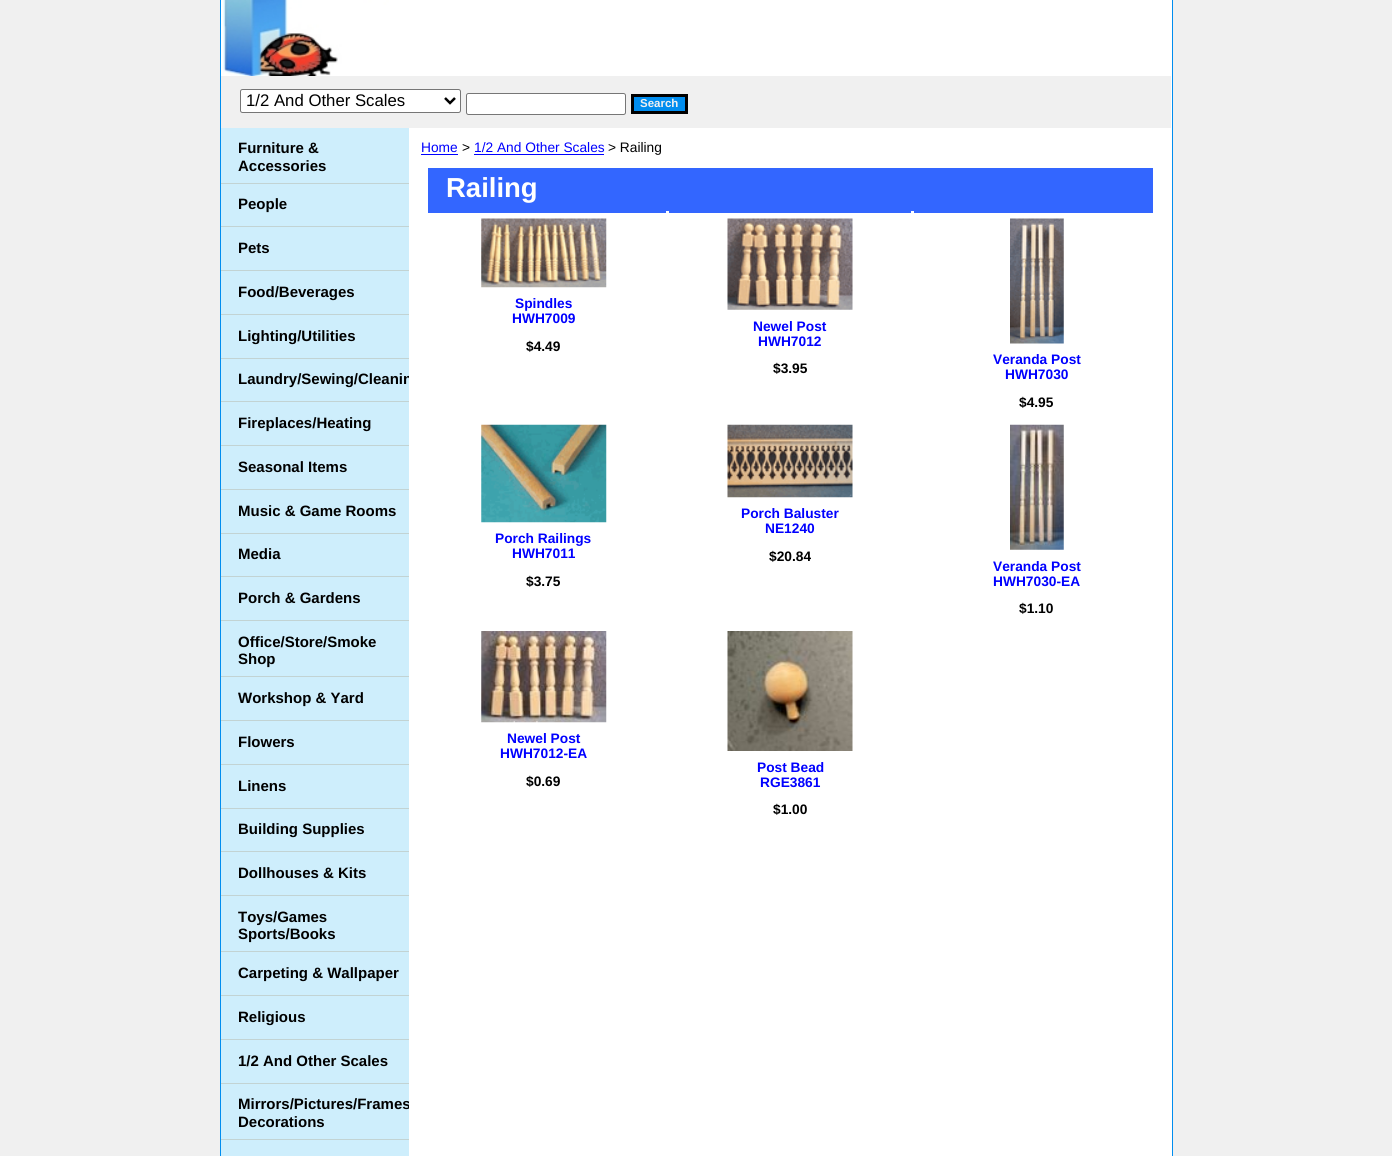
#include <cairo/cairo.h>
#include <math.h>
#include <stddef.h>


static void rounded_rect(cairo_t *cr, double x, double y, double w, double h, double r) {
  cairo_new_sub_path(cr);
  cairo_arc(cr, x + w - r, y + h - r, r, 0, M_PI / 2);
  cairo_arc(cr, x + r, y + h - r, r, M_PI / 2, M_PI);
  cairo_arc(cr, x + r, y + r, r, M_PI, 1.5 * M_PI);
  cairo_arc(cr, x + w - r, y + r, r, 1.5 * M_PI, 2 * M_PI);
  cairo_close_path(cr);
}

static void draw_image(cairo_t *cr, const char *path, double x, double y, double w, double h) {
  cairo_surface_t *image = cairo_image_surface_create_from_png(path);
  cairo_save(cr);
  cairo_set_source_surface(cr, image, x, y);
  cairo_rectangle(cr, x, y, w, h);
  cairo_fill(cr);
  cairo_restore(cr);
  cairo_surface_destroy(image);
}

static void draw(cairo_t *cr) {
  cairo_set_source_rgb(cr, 240 / 255.0, 240 / 255.0, 240 / 255.0);
  cairo_paint(cr);
  cairo_set_source_rgb(cr, 1, 1, 1);
  cairo_rectangle(cr, 220.5, -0.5, 952, 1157);
  cairo_fill_preserve(cr);
  cairo_set_source_rgb(cr, 0, 141 / 255.0, 239 / 255.0);
  cairo_set_line_width(cr, 1);
  cairo_stroke(cr);
  draw_image(cr, "images/1.png", 221, 0, 950, 76);
  cairo_set_source_rgb(cr, 240 / 255.0, 240 / 255.0, 240 / 255.0);
  cairo_rectangle(cr, 221, 76, 950, 52);
  cairo_fill(cr);
  cairo_set_source_rgb(cr, 1, 1, 1);
  rounded_rect(cr, 240.5, 89.5, 220, 23, 2);
  cairo_fill_preserve(cr);
  cairo_set_source_rgb(cr, 118 / 255.0, 118 / 255.0, 118 / 255.0);
  cairo_stroke(cr);
  cairo_new_path(cr);
  cairo_move_to(cr, 445, 98);
  cairo_line_to(cr, 450, 103);
  cairo_line_to(cr, 455, 98);
  cairo_set_source_rgb(cr, 0, 0, 0);
  cairo_set_line_width(cr, 2.5);
  cairo_stroke(cr);
  cairo_set_source_rgb(cr, 1, 1, 1);
  rounded_rect(cr, 466.5, 93.5, 159, 21, 2);
  cairo_fill_preserve(cr);
  cairo_set_source_rgb(cr, 118 / 255.0, 118 / 255.0, 118 / 255.0);
  cairo_set_line_width(cr, 1);
  cairo_stroke(cr);
  cairo_set_source_rgb(cr, 0, 141 / 255.0, 239 / 255.0);
  cairo_rectangle(cr, 632.5, 95.5, 54, 17);
  cairo_fill_preserve(cr);
  cairo_set_source_rgb(cr, 0, 0, 0);
  cairo_set_line_width(cr, 3);
  cairo_stroke(cr);
  cairo_set_source_rgb(cr, 206 / 255.0, 238 / 255.0, 252 / 255.0);
  cairo_rectangle(cr, 221, 128, 188, 1028);
  cairo_fill(cr);
  cairo_set_source_rgb(cr, 194 / 255.0, 211 / 255.0, 211 / 255.0);
  cairo_rectangle(cr, 221, 183, 188, 1);
  cairo_fill(cr);
  cairo_rectangle(cr, 221, 226, 188, 1);
  cairo_fill(cr);
  cairo_rectangle(cr, 221, 270, 188, 1);
  cairo_fill(cr);
  cairo_rectangle(cr, 221, 314, 188, 1);
  cairo_fill(cr);
  cairo_rectangle(cr, 221, 358, 188, 1);
  cairo_fill(cr);
  cairo_rectangle(cr, 221, 401, 188, 1);
  cairo_fill(cr);
  cairo_rectangle(cr, 221, 445, 188, 1);
  cairo_fill(cr);
  cairo_rectangle(cr, 221, 489, 188, 1);
  cairo_fill(cr);
  cairo_rectangle(cr, 221, 533, 188, 1);
  cairo_fill(cr);
  cairo_rectangle(cr, 221, 576, 188, 1);
  cairo_fill(cr);
  cairo_rectangle(cr, 221, 620, 188, 1);
  cairo_fill(cr);
  cairo_rectangle(cr, 221, 676, 188, 1);
  cairo_fill(cr);
  cairo_rectangle(cr, 221, 720, 188, 1);
  cairo_fill(cr);
  cairo_rectangle(cr, 221, 764, 188, 1);
  cairo_fill(cr);
  cairo_rectangle(cr, 221, 808, 188, 1);
  cairo_fill(cr);
  cairo_rectangle(cr, 221, 851, 188, 1);
  cairo_fill(cr);
  cairo_rectangle(cr, 221, 895, 188, 1);
  cairo_fill(cr);
  cairo_rectangle(cr, 221, 951, 188, 1);
  cairo_fill(cr);
  cairo_rectangle(cr, 221, 995, 188, 1);
  cairo_fill(cr);
  cairo_rectangle(cr, 221, 1039, 188, 1);
  cairo_fill(cr);
  cairo_rectangle(cr, 221, 1083, 188, 1);
  cairo_fill(cr);
  cairo_rectangle(cr, 221, 1139, 188, 1);
  cairo_fill(cr);
  cairo_set_source_rgb(cr, 0, 0, 1);
  cairo_rectangle(cr, 421, 154, 37, 1);
  cairo_fill(cr);
  cairo_rectangle(cr, 474, 154, 130, 1);
  cairo_fill(cr);
  cairo_set_source_rgb(cr, 51 / 255.0, 102 / 255.0, 1);
  cairo_rectangle(cr, 428, 168, 725, 45);
  cairo_fill(cr);
  cairo_set_source_rgb(cr, 1, 1, 1);
  cairo_rectangle(cr, 666, 211, 3, 2);
  cairo_fill(cr);
  draw_image(cr, "images/2.png", 481, 218, 126, 70);
  cairo_rectangle(cr, 911, 211, 3, 2);
  cairo_fill(cr);
  draw_image(cr, "images/3.png", 727, 218, 126, 92);
  draw_image(cr, "images/4.png", 1010, 218, 54, 126);
  draw_image(cr, "images/5.png", 481, 424, 126, 99);
  draw_image(cr, "images/6.png", 727, 424, 126, 74);
  draw_image(cr, "images/7.png", 1010, 424, 54, 126);
  draw_image(cr, "images/8.png", 481, 631, 126, 92);
  draw_image(cr, "images/9.png", 727, 631, 126, 120);
  cairo_select_font_face(cr, "Liberation Sans", CAIRO_FONT_SLANT_NORMAL, CAIRO_FONT_WEIGHT_NORMAL);
  cairo_set_font_size(cr, 16.75);
  cairo_set_source_rgb(cr, 0, 0, 0);
  cairo_move_to(cr, 246, 106);
  cairo_show_text(cr, "1/2 And Other Scales");
  cairo_select_font_face(cr, "Liberation Sans", CAIRO_FONT_SLANT_NORMAL, CAIRO_FONT_WEIGHT_BOLD);
  cairo_set_font_size(cr, 11.5);
  cairo_set_source_rgb(cr, 240 / 255.0, 240 / 255.0, 240 / 255.0);
  cairo_move_to(cr, 640, 107);
  cairo_show_text(cr, "Search");
  cairo_set_font_size(cr, 15);
  cairo_set_source_rgb(cr, 0, 0, 0);
  cairo_move_to(cr, 238, 153);
  cairo_show_text(cr, "Furniture &");
  cairo_move_to(cr, 238, 171);
  cairo_show_text(cr, "Accessories");
  cairo_move_to(cr, 238, 209);
  cairo_show_text(cr, "People");
  cairo_move_to(cr, 238, 253);
  cairo_show_text(cr, "Pets");
  cairo_move_to(cr, 238, 297);
  cairo_show_text(cr, "Food/Beverages");
  cairo_move_to(cr, 238, 341);
  cairo_show_text(cr, "Lighting/Utilities");
  cairo_save(cr);
  cairo_rectangle(cr, 221, 128, 188, 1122);
  cairo_clip(cr);
  cairo_move_to(cr, 238, 384);
  cairo_show_text(cr, "Laundry/Sewing/Cleanin");
  cairo_restore(cr);
  cairo_move_to(cr, 238, 428);
  cairo_show_text(cr, "Fireplaces/Heating");
  cairo_move_to(cr, 238, 472);
  cairo_show_text(cr, "Seasonal Items");
  cairo_move_to(cr, 238, 516);
  cairo_show_text(cr, "Music & Game Rooms");
  cairo_move_to(cr, 238, 559);
  cairo_show_text(cr, "Media");
  cairo_move_to(cr, 238, 603);
  cairo_show_text(cr, "Porch & Gardens");
  cairo_move_to(cr, 238, 647);
  cairo_show_text(cr, "Office/Store/Smoke");
  cairo_move_to(cr, 238, 664);
  cairo_show_text(cr, "Shop");
  cairo_move_to(cr, 238, 703);
  cairo_show_text(cr, "Workshop & Yard");
  cairo_move_to(cr, 238, 747);
  cairo_show_text(cr, "Flowers");
  cairo_move_to(cr, 238, 791);
  cairo_show_text(cr, "Linens");
  cairo_move_to(cr, 238, 834);
  cairo_show_text(cr, "Building Supplies");
  cairo_move_to(cr, 238, 878);
  cairo_show_text(cr, "Dollhouses & Kits");
  cairo_move_to(cr, 238, 922);
  cairo_show_text(cr, "Toys/Games");
  cairo_move_to(cr, 238, 939);
  cairo_show_text(cr, "Sports/Books");
  cairo_move_to(cr, 238, 978);
  cairo_show_text(cr, "Carpeting & Wallpaper");
  cairo_move_to(cr, 238, 1022);
  cairo_show_text(cr, "Religious");
  cairo_move_to(cr, 238, 1066);
  cairo_show_text(cr, "1/2 And Other Scales");
  cairo_save(cr);
  cairo_rectangle(cr, 221, 128, 188, 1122);
  cairo_clip(cr);
  cairo_move_to(cr, 238, 1109);
  cairo_show_text(cr, "Mirrors/Pictures/Frames");
  cairo_restore(cr);
  cairo_move_to(cr, 238, 1127);
  cairo_show_text(cr, "Decorations");
  cairo_select_font_face(cr, "Liberation Sans", CAIRO_FONT_SLANT_NORMAL, CAIRO_FONT_WEIGHT_NORMAL);
  cairo_set_font_size(cr, 13.75);
  cairo_set_source_rgb(cr, 0, 0, 1);
  cairo_move_to(cr, 421, 152);
  cairo_show_text(cr, "Home");
  cairo_set_source_rgb(cr, 0, 0, 0);
  cairo_move_to(cr, 462, 152);
  cairo_show_text(cr, ">");
  cairo_set_source_rgb(cr, 0, 0, 1);
  cairo_move_to(cr, 474, 152);
  cairo_show_text(cr, "1/2 And Other Scales");
  cairo_set_source_rgb(cr, 0, 0, 0);
  cairo_move_to(cr, 608, 152);
  cairo_show_text(cr, "> Railing");
  cairo_select_font_face(cr, "Liberation Sans", CAIRO_FONT_SLANT_NORMAL, CAIRO_FONT_WEIGHT_BOLD);
  cairo_set_font_size(cr, 27.5);
  cairo_set_source_rgb(cr, 1, 1, 1);
  cairo_move_to(cr, 446, 197);
  cairo_show_text(cr, "Railing");
  cairo_set_font_size(cr, 13.75);
  cairo_set_source_rgb(cr, 0, 0, 1);
  cairo_move_to(cr, 515, 308);
  cairo_show_text(cr, "Spindles");
  cairo_move_to(cr, 512, 323);
  cairo_show_text(cr, "HWH7009");
  cairo_set_source_rgb(cr, 0, 0, 0);
  cairo_move_to(cr, 526, 351);
  cairo_show_text(cr, "$4.49");
  cairo_set_source_rgb(cr, 0, 0, 1);
  cairo_move_to(cr, 753, 331);
  cairo_show_text(cr, "Newel Post");
  cairo_move_to(cr, 758, 346);
  cairo_show_text(cr, "HWH7012");
  cairo_set_source_rgb(cr, 0, 0, 0);
  cairo_move_to(cr, 773, 373);
  cairo_show_text(cr, "$3.95");
  cairo_set_source_rgb(cr, 0, 0, 1);
  cairo_move_to(cr, 993, 364);
  cairo_show_text(cr, "Veranda Post");
  cairo_move_to(cr, 1005, 379);
  cairo_show_text(cr, "HWH7030");
  cairo_set_source_rgb(cr, 0, 0, 0);
  cairo_move_to(cr, 1019, 407);
  cairo_show_text(cr, "$4.95");
  cairo_set_source_rgb(cr, 0, 0, 1);
  cairo_move_to(cr, 495, 543);
  cairo_show_text(cr, "Porch Railings");
  cairo_move_to(cr, 512, 558);
  cairo_show_text(cr, "HWH7011");
  cairo_set_source_rgb(cr, 0, 0, 0);
  cairo_move_to(cr, 526, 586);
  cairo_show_text(cr, "$3.75");
  cairo_set_source_rgb(cr, 0, 0, 1);
  cairo_move_to(cr, 741, 518);
  cairo_show_text(cr, "Porch Baluster");
  cairo_move_to(cr, 765, 533);
  cairo_show_text(cr, "NE1240");
  cairo_set_source_rgb(cr, 0, 0, 0);
  cairo_move_to(cr, 769, 561);
  cairo_show_text(cr, "$20.84");
  cairo_set_source_rgb(cr, 0, 0, 1);
  cairo_move_to(cr, 993, 571);
  cairo_show_text(cr, "Veranda Post");
  cairo_move_to(cr, 993, 586);
  cairo_show_text(cr, "HWH7030-EA");
  cairo_set_source_rgb(cr, 0, 0, 0);
  cairo_move_to(cr, 1019, 613);
  cairo_show_text(cr, "$1.10");
  cairo_set_source_rgb(cr, 0, 0, 1);
  cairo_move_to(cr, 507, 743);
  cairo_show_text(cr, "Newel Post");
  cairo_move_to(cr, 500, 758);
  cairo_show_text(cr, "HWH7012-EA");
  cairo_set_source_rgb(cr, 0, 0, 0);
  cairo_move_to(cr, 526, 786);
  cairo_show_text(cr, "$0.69");
  cairo_set_source_rgb(cr, 0, 0, 1);
  cairo_move_to(cr, 757, 772);
  cairo_show_text(cr, "Post Bead");
  cairo_move_to(cr, 760, 787);
  cairo_show_text(cr, "RGE3861");
  cairo_set_source_rgb(cr, 0, 0, 0);
  cairo_move_to(cr, 773, 814);
  cairo_show_text(cr, "$1.00");
}

int main(void) {
  cairo_surface_t *surface = cairo_image_surface_create(CAIRO_FORMAT_RGB24, 1392, 1156);
  cairo_t *cr = cairo_create(surface);
  cairo_font_options_t *options = cairo_font_options_create();
  cairo_font_options_set_hint_metrics(options, CAIRO_HINT_METRICS_OFF);
  cairo_font_options_set_hint_style(options, CAIRO_HINT_STYLE_NONE);
  cairo_set_font_options(cr, options);
  cairo_set_miter_limit(cr, 4);
  draw(cr);
  cairo_surface_write_to_png(surface, "out.png");
  cairo_font_options_destroy(options);
  cairo_destroy(cr);
  cairo_surface_destroy(surface);
  return 0;
}
